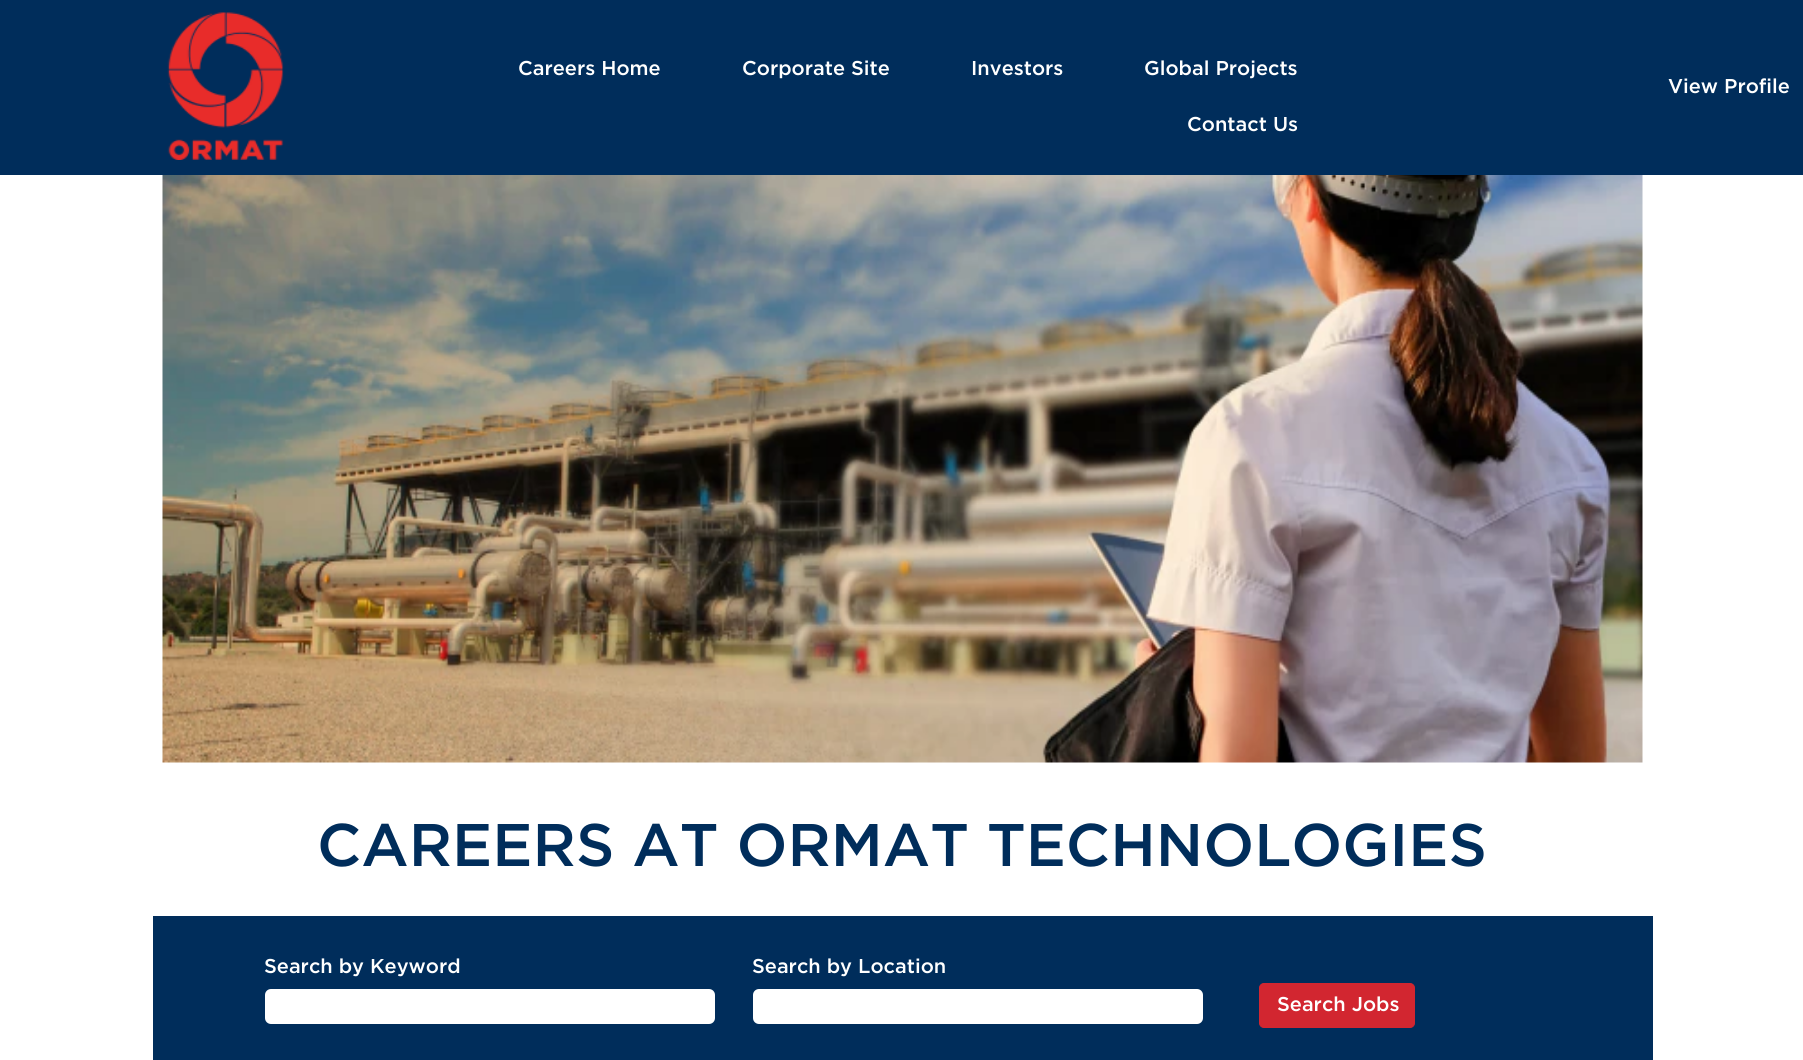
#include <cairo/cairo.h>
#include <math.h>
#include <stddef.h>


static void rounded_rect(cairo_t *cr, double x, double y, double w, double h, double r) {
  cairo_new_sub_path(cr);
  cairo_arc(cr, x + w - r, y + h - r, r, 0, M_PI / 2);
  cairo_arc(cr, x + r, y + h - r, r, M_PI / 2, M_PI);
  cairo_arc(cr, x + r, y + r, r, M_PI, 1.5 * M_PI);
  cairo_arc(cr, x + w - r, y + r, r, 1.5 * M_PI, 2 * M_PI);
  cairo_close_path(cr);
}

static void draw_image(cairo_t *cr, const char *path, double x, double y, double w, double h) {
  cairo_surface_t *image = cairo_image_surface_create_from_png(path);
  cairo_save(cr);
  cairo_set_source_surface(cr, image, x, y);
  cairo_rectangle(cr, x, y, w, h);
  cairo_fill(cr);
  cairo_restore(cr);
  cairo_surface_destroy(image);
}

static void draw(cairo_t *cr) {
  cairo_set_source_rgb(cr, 1, 1, 1);
  cairo_paint(cr);
  cairo_set_source_rgb(cr, 0, 45 / 255.0, 91 / 255.0);
  cairo_rectangle(cr, 0, 0, 1803, 175);
  cairo_fill(cr);
  draw_image(cr, "images/1.png", 167, 12, 117, 148);
  draw_image(cr, "images/2.png", 162, 175, 1481, 588);
  cairo_rectangle(cr, 153, 916, 1500, 144);
  cairo_fill(cr);
  cairo_set_source_rgb(cr, 1, 1, 1);
  rounded_rect(cr, 266.5, 990.5, 447, 32, 4.5);
  cairo_fill_preserve(cr);
  cairo_set_line_width(cr, 3);
  cairo_stroke(cr);
  rounded_rect(cr, 754.5, 990.5, 447, 32, 4.5);
  cairo_fill_preserve(cr);
  cairo_stroke(cr);
  cairo_set_source_rgb(cr, 210 / 255.0, 38 / 255.0, 48 / 255.0);
  rounded_rect(cr, 1259.5, 983.5, 155, 44, 4.5);
  cairo_fill_preserve(cr);
  cairo_set_line_width(cr, 1);
  cairo_stroke(cr);
  cairo_select_font_face(cr, "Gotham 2 Medium", CAIRO_FONT_SLANT_NORMAL, CAIRO_FONT_WEIGHT_NORMAL);
  cairo_set_font_size(cr, 20);
  cairo_set_source_rgb(cr, 1, 1, 1);
  cairo_move_to(cr, 518, 75);
  cairo_show_text(cr, "Careers Home");
  cairo_move_to(cr, 742, 75);
  cairo_show_text(cr, "Corporate Site");
  cairo_move_to(cr, 971, 75);
  cairo_show_text(cr, "Investors");
  cairo_move_to(cr, 1144, 75);
  cairo_show_text(cr, "Global Projects");
  cairo_move_to(cr, 1187, 131);
  cairo_show_text(cr, "Contact Us");
  cairo_move_to(cr, 1668, 93);
  cairo_show_text(cr, "View Profile");
  cairo_select_font_face(cr, "Gotham Medium", CAIRO_FONT_SLANT_NORMAL, CAIRO_FONT_WEIGHT_NORMAL);
  cairo_set_font_size(cr, 60);
  cairo_set_source_rgb(cr, 0, 45 / 255.0, 91 / 255.0);
  cairo_move_to(cr, 317, 866);
  cairo_show_text(cr, "CAREERS AT ORMAT TECHNOLOGIES");
  cairo_select_font_face(cr, "Gotham 2 Medium", CAIRO_FONT_SLANT_NORMAL, CAIRO_FONT_WEIGHT_NORMAL);
  cairo_set_font_size(cr, 20);
  cairo_set_source_rgb(cr, 1, 1, 1);
  cairo_move_to(cr, 264, 973);
  cairo_show_text(cr, "Search by Keyword");
  cairo_move_to(cr, 752, 973);
  cairo_show_text(cr, "Search by Location");
  cairo_move_to(cr, 1277, 1011);
  cairo_show_text(cr, "Search Jobs");
}

int main(void) {
  cairo_surface_t *surface = cairo_image_surface_create(CAIRO_FORMAT_RGB24, 1803, 1060);
  cairo_t *cr = cairo_create(surface);
  cairo_font_options_t *options = cairo_font_options_create();
  cairo_font_options_set_hint_metrics(options, CAIRO_HINT_METRICS_OFF);
  cairo_font_options_set_hint_style(options, CAIRO_HINT_STYLE_NONE);
  cairo_set_font_options(cr, options);
  cairo_set_miter_limit(cr, 4);
  draw(cr);
  cairo_surface_write_to_png(surface, "out.png");
  cairo_font_options_destroy(options);
  cairo_destroy(cr);
  cairo_surface_destroy(surface);
  return 0;
}
